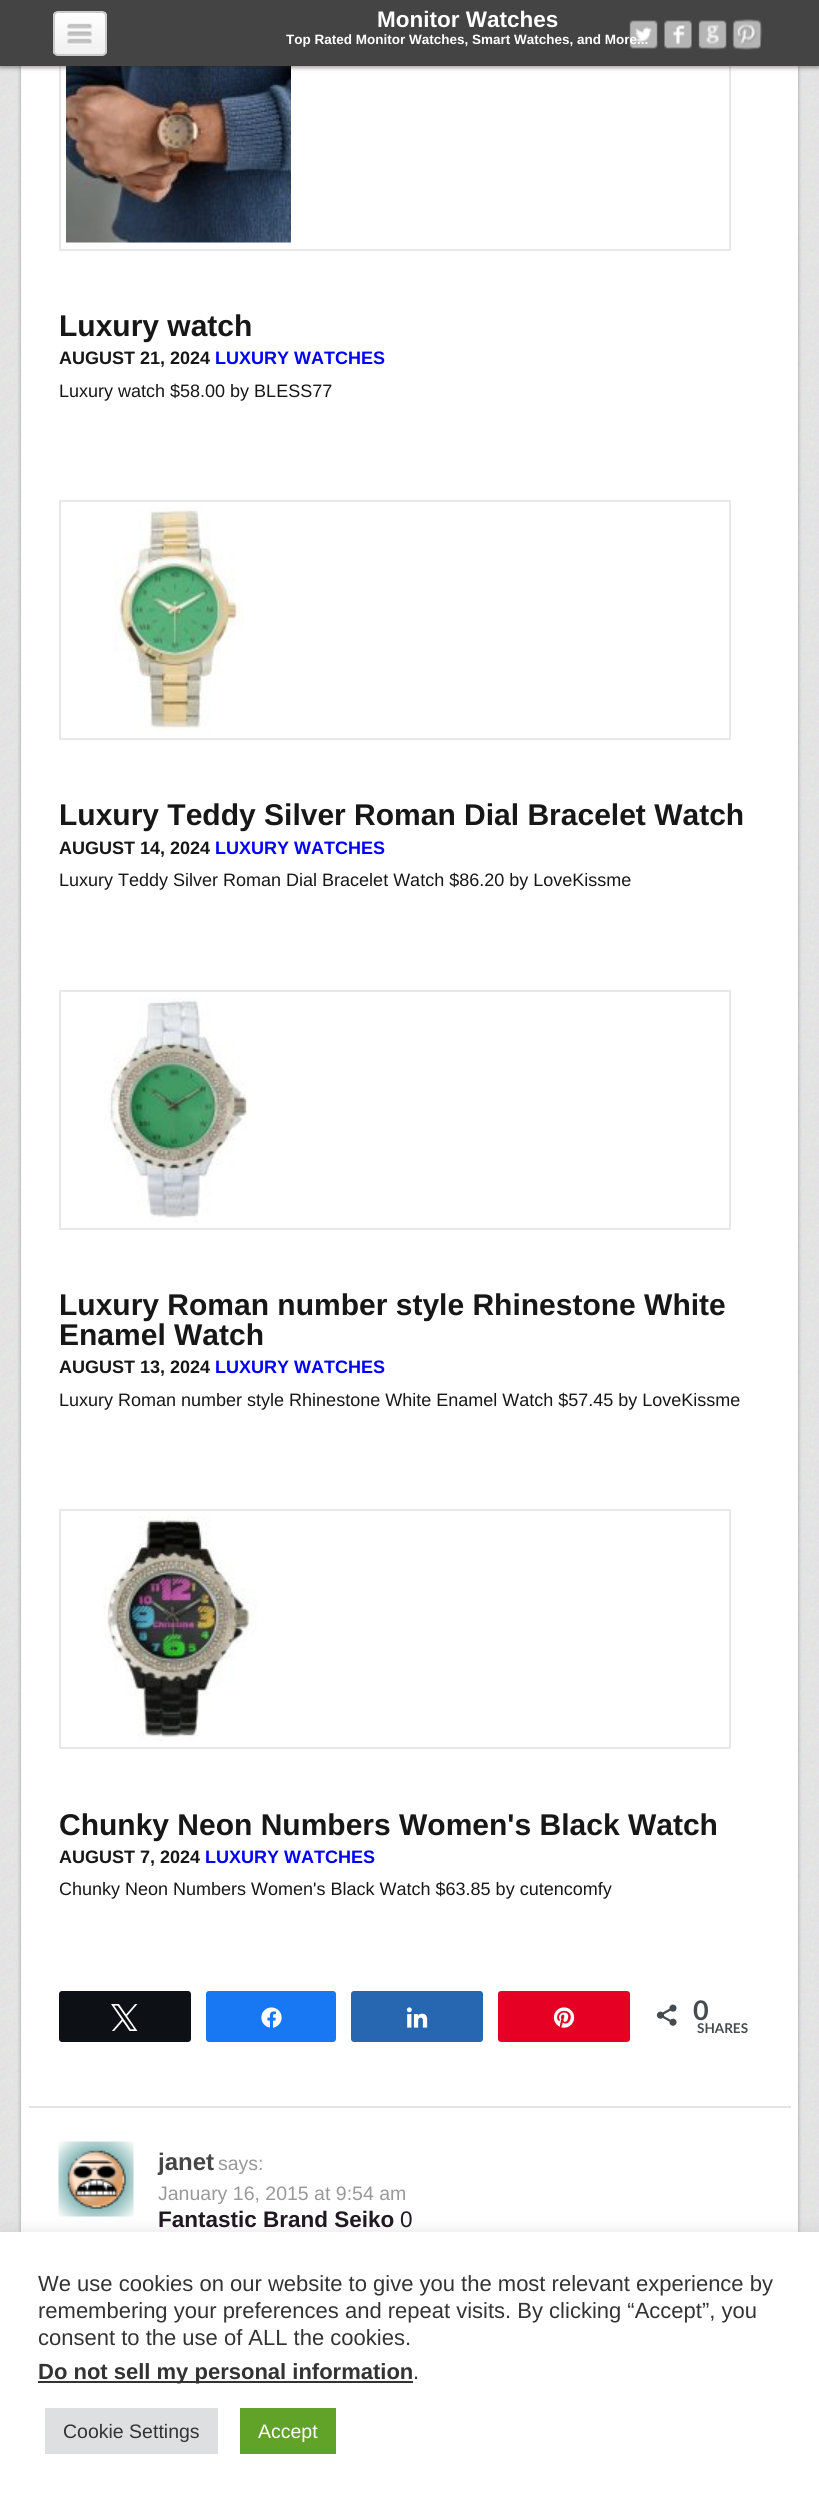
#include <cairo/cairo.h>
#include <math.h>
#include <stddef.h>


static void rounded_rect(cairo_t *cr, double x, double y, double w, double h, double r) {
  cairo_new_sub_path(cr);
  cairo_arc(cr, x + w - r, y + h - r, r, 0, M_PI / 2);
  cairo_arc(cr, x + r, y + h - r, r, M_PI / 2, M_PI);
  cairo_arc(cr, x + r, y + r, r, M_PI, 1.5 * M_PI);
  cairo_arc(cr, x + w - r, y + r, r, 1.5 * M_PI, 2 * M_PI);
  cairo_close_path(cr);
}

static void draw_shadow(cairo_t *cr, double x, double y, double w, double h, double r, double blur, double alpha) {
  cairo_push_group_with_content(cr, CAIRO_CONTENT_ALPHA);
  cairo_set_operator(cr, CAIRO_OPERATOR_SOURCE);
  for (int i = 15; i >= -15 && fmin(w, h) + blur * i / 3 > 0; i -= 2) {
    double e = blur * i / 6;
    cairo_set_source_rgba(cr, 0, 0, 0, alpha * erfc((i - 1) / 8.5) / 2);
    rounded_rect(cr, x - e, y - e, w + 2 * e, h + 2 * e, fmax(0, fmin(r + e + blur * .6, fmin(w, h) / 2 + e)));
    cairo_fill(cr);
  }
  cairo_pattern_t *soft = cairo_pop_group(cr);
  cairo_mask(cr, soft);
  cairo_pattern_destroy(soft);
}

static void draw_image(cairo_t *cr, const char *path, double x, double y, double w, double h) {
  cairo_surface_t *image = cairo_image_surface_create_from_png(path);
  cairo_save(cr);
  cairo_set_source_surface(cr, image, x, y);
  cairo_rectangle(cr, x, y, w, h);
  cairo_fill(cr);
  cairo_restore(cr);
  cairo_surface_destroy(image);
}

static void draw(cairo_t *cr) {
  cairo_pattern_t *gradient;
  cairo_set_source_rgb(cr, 1, 1, 1);
  cairo_paint(cr);
  draw_image(cr, "images/1.png", 0, 66, 819, 2166);
  cairo_set_source_rgb(cr, 0, 0, 0);
  draw_shadow(cr, 21, -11, 777, 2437, 5, 2, 0.33);
  cairo_set_source_rgb(cr, 1, 1, 1);
  cairo_rectangle(cr, 21, 66, 777, 2166);
  cairo_fill(cr);
  cairo_rectangle(cr, 60, 12, 670, 238);
  cairo_set_source_rgb(cr, 232 / 255.0, 232 / 255.0, 232 / 255.0);
  cairo_stroke(cr);
  draw_image(cr, "images/7.png", 66, 66, 225, 177);
  cairo_set_source_rgb(cr, 34 / 255.0, 25 / 255.0, 25 / 255.0);
  draw_shadow(cr, 0, 2, 819, 66, 0, 2, 0.4);
  cairo_set_source_rgb(cr, 68 / 255.0, 68 / 255.0, 68 / 255.0);
  cairo_rectangle(cr, 0, 0, 819, 66);
  cairo_fill(cr);
  cairo_save(cr);
  rounded_rect(cr, 53, 11, 54, 45, 5);
  cairo_clip(cr);
  gradient = cairo_pattern_create_linear(80, 12, 80, 54);
  cairo_pattern_add_color_stop_rgba(gradient, 0, 1, 1, 1, 1);
  cairo_pattern_add_color_stop_rgba(gradient, 1, 240 / 255.0, 240 / 255.0, 240 / 255.0, 1);
  cairo_set_source(cr, gradient);
  cairo_pattern_destroy(gradient);
  cairo_rectangle(cr, 53, 12, 54, 42);
  cairo_fill(cr);
  cairo_restore(cr);
  rounded_rect(cr, 54, 12, 52, 43, 4);
  cairo_set_source_rgb(cr, 204 / 255.0, 204 / 255.0, 204 / 255.0);
  cairo_stroke(cr);
  draw_image(cr, "images/2.png", 67, 23, 25, 22);
  draw_image(cr, "images/3.png", 629, 20, 29, 29);
  draw_image(cr, "images/4.png", 664, 20, 28, 29);
  draw_image(cr, "images/5.png", 698, 20, 29, 30);
  draw_image(cr, "images/6.png", 732, 19, 30, 31);
  cairo_rectangle(cr, 60, 501, 670, 238);
  cairo_set_source_rgb(cr, 232 / 255.0, 232 / 255.0, 232 / 255.0);
  cairo_stroke(cr);
  draw_image(cr, "images/8.png", 114, 507, 130, 225);
  cairo_rectangle(cr, 60, 991, 670, 238);
  cairo_stroke(cr);
  draw_image(cr, "images/9.png", 104, 997, 146, 225);
  cairo_rectangle(cr, 60, 1510, 670, 238);
  cairo_stroke(cr);
  draw_image(cr, "images/10.png", 103, 1516, 155, 225);
  cairo_set_source_rgb(cr, 13 / 255.0, 16 / 255.0, 20 / 255.0);
  rounded_rect(cr, 60, 1992, 130, 49, 2);
  cairo_fill_preserve(cr);
  cairo_stroke(cr);
  draw_image(cr, "images/11.png", 111, 2004, 27, 27);
  cairo_set_source_rgb(cr, 24 / 255.0, 119 / 255.0, 242 / 255.0);
  rounded_rect(cr, 207, 1992, 128, 49, 2);
  cairo_fill_preserve(cr);
  cairo_stroke(cr);
  draw_image(cr, "images/12.png", 261, 2007, 21, 21);
  cairo_set_source_rgb(cr, 39 / 255.0, 103 / 255.0, 177 / 255.0);
  rounded_rect(cr, 352, 1992, 130, 49, 2);
  cairo_fill_preserve(cr);
  cairo_stroke(cr);
  draw_image(cr, "images/13.png", 406, 2007, 22, 21);
  cairo_set_source_rgb(cr, 230 / 255.0, 0, 35 / 255.0);
  rounded_rect(cr, 499, 1992, 130, 49, 2);
  cairo_fill_preserve(cr);
  cairo_stroke(cr);
  draw_image(cr, "images/14.png", 553, 2007, 22, 21);
  draw_image(cr, "images/15.png", 656, 2004, 21, 22);
  cairo_set_source_rgb(cr, 227 / 255.0, 227 / 255.0, 227 / 255.0);
  cairo_rectangle(cr, 29, 2106, 762, 2);
  cairo_fill(cr);
  draw_image(cr, "images/16.png", 58, 2141, 76, 76);
  cairo_set_source_rgb(cr, 172 / 255.0, 171 / 255.0, 171 / 255.0);
  draw_shadow(cr, 0, 2231, 819, 267, 0, 7.5, 0.3);
  cairo_set_source_rgb(cr, 1, 1, 1);
  cairo_rectangle(cr, 0, 2232, 819, 266);
  cairo_fill(cr);
  cairo_set_source_rgb(cr, 51 / 255.0, 51 / 255.0, 51 / 255.0);
  cairo_rectangle(cr, 38, 2381, 375, 2);
  cairo_fill(cr);
  cairo_set_source_rgb(cr, 222 / 255.0, 223 / 255.0, 224 / 255.0);
  cairo_rectangle(cr, 45, 2408, 173, 46);
  cairo_fill(cr);
  cairo_set_source_rgb(cr, 97 / 255.0, 162 / 255.0, 41 / 255.0);
  cairo_rectangle(cr, 240, 2408, 96, 46);
  cairo_fill(cr);
  cairo_select_font_face(cr, "Liberation Sans", CAIRO_FONT_SLANT_NORMAL, CAIRO_FONT_WEIGHT_BOLD);
  cairo_set_font_size(cr, 22.5);
  cairo_set_source_rgb(cr, 1, 1, 1);
  cairo_move_to(cr, 377, 27);
  cairo_show_text(cr, "Monitor Watches");
  cairo_set_font_size(cr, 13.5);
  cairo_move_to(cr, 286, 44);
  cairo_show_text(cr, "Top Rated Monitor Watches, Smart Watches, and More...");
  cairo_set_font_size(cr, 30);
  cairo_set_source_rgb(cr, 23 / 255.0, 23 / 255.0, 23 / 255.0);
  cairo_move_to(cr, 59, 336);
  cairo_show_text(cr, "Luxury watch");
  cairo_set_font_size(cr, 18);
  cairo_move_to(cr, 59, 364);
  cairo_show_text(cr, "AUGUST 21, 2024");
  cairo_set_source_rgb(cr, 0, 0, 1);
  cairo_move_to(cr, 215, 364);
  cairo_show_text(cr, "LUXURY WATCHES");
  cairo_select_font_face(cr, "Liberation Sans", CAIRO_FONT_SLANT_NORMAL, CAIRO_FONT_WEIGHT_NORMAL);
  cairo_set_source_rgb(cr, 23 / 255.0, 23 / 255.0, 23 / 255.0);
  cairo_move_to(cr, 59, 397);
  cairo_show_text(cr, "Luxury watch $58.00 by BLESS77");
  cairo_select_font_face(cr, "Liberation Sans", CAIRO_FONT_SLANT_NORMAL, CAIRO_FONT_WEIGHT_BOLD);
  cairo_set_font_size(cr, 30);
  cairo_move_to(cr, 59, 825);
  cairo_show_text(cr, "Luxury Teddy Silver Roman Dial Bracelet Watch");
  cairo_set_font_size(cr, 18);
  cairo_move_to(cr, 59, 854);
  cairo_show_text(cr, "AUGUST 14, 2024");
  cairo_set_source_rgb(cr, 0, 0, 1);
  cairo_move_to(cr, 215, 854);
  cairo_show_text(cr, "LUXURY WATCHES");
  cairo_select_font_face(cr, "Liberation Sans", CAIRO_FONT_SLANT_NORMAL, CAIRO_FONT_WEIGHT_NORMAL);
  cairo_set_source_rgb(cr, 23 / 255.0, 23 / 255.0, 23 / 255.0);
  cairo_move_to(cr, 59, 886);
  cairo_show_text(cr, "Luxury Teddy Silver Roman Dial Bracelet Watch $86.20 by LoveKissme");
  cairo_select_font_face(cr, "Liberation Sans", CAIRO_FONT_SLANT_NORMAL, CAIRO_FONT_WEIGHT_BOLD);
  cairo_set_font_size(cr, 30);
  cairo_move_to(cr, 59, 1315);
  cairo_show_text(cr, "Luxury Roman number style Rhinestone White");
  cairo_move_to(cr, 59, 1345);
  cairo_show_text(cr, "Enamel Watch");
  cairo_set_font_size(cr, 18);
  cairo_move_to(cr, 59, 1373);
  cairo_show_text(cr, "AUGUST 13, 2024");
  cairo_set_source_rgb(cr, 0, 0, 1);
  cairo_move_to(cr, 215, 1373);
  cairo_show_text(cr, "LUXURY WATCHES");
  cairo_select_font_face(cr, "Liberation Sans", CAIRO_FONT_SLANT_NORMAL, CAIRO_FONT_WEIGHT_NORMAL);
  cairo_set_source_rgb(cr, 23 / 255.0, 23 / 255.0, 23 / 255.0);
  cairo_move_to(cr, 59, 1406);
  cairo_show_text(cr, "Luxury Roman number style Rhinestone White Enamel Watch $57.45 by LoveKissme");
  cairo_select_font_face(cr, "Liberation Sans", CAIRO_FONT_SLANT_NORMAL, CAIRO_FONT_WEIGHT_BOLD);
  cairo_set_font_size(cr, 30);
  cairo_move_to(cr, 59, 1835);
  cairo_show_text(cr, "Chunky Neon Numbers Women's Black Watch");
  cairo_set_font_size(cr, 18);
  cairo_move_to(cr, 59, 1863);
  cairo_show_text(cr, "AUGUST 7, 2024");
  cairo_set_source_rgb(cr, 0, 0, 1);
  cairo_move_to(cr, 205, 1863);
  cairo_show_text(cr, "LUXURY WATCHES");
  cairo_select_font_face(cr, "Liberation Sans", CAIRO_FONT_SLANT_NORMAL, CAIRO_FONT_WEIGHT_NORMAL);
  cairo_set_source_rgb(cr, 23 / 255.0, 23 / 255.0, 23 / 255.0);
  cairo_move_to(cr, 59, 1895);
  cairo_show_text(cr, "Chunky Neon Numbers Women's Black Watch $63.85 by cutencomfy");
  cairo_select_font_face(cr, "Lato", CAIRO_FONT_SLANT_NORMAL, CAIRO_FONT_WEIGHT_BOLD);
  cairo_set_font_size(cr, 27);
  cairo_set_source_rgb(cr, 71 / 255.0, 75 / 255.0, 77 / 255.0);
  cairo_move_to(cr, 693, 2020);
  cairo_show_text(cr, "0");
  cairo_set_font_size(cr, 13.5);
  cairo_move_to(cr, 697, 2033);
  cairo_show_text(cr, "SHARES");
  cairo_select_font_face(cr, "Liberation Sans", CAIRO_FONT_SLANT_NORMAL, CAIRO_FONT_WEIGHT_BOLD);
  cairo_set_font_size(cr, 24);
  cairo_set_source_rgb(cr, 69 / 255.0, 69 / 255.0, 69 / 255.0);
  cairo_move_to(cr, 158, 2170);
  cairo_show_text(cr, "janet");
  cairo_select_font_face(cr, "Liberation Sans", CAIRO_FONT_SLANT_NORMAL, CAIRO_FONT_WEIGHT_NORMAL);
  cairo_set_font_size(cr, 19.5);
  cairo_set_source_rgb(cr, 153 / 255.0, 153 / 255.0, 153 / 255.0);
  cairo_move_to(cr, 218, 2170);
  cairo_show_text(cr, "says:");
  cairo_move_to(cr, 158, 2200);
  cairo_show_text(cr, "January 16, 2015 at 9:54 am");
  cairo_select_font_face(cr, "Liberation Sans", CAIRO_FONT_SLANT_NORMAL, CAIRO_FONT_WEIGHT_BOLD);
  cairo_set_font_size(cr, 22.5);
  cairo_set_source_rgb(cr, 33 / 255.0, 25 / 255.0, 34 / 255.0);
  cairo_move_to(cr, 158, 2227);
  cairo_show_text(cr, "Fantastic Brand Seiko");
  cairo_select_font_face(cr, "Liberation Sans", CAIRO_FONT_SLANT_NORMAL, CAIRO_FONT_WEIGHT_NORMAL);
  cairo_move_to(cr, 400, 2227);
  cairo_show_text(cr, "0");
  cairo_set_font_size(cr, 22);
  cairo_set_source_rgb(cr, 51 / 255.0, 51 / 255.0, 51 / 255.0);
  cairo_move_to(cr, 38, 2291);
  cairo_show_text(cr, "We use cookies on our website to give you the most relevant experience by");
  cairo_move_to(cr, 38, 2318);
  cairo_show_text(cr, "remembering your preferences and repeat visits. By clicking “Accept”, you");
  cairo_move_to(cr, 38, 2345);
  cairo_show_text(cr, "consent to the use of ALL the cookies.");
  cairo_select_font_face(cr, "Liberation Sans", CAIRO_FONT_SLANT_NORMAL, CAIRO_FONT_WEIGHT_BOLD);
  cairo_move_to(cr, 38, 2379);
  cairo_show_text(cr, "Do not sell my personal information");
  cairo_select_font_face(cr, "Liberation Sans", CAIRO_FONT_SLANT_NORMAL, CAIRO_FONT_WEIGHT_NORMAL);
  cairo_move_to(cr, 413, 2379);
  cairo_show_text(cr, ".");
  cairo_set_font_size(cr, 19.5);
  cairo_move_to(cr, 63, 2438);
  cairo_show_text(cr, "Cookie Settings");
  cairo_set_source_rgb(cr, 1, 1, 1);
  cairo_move_to(cr, 258, 2438);
  cairo_show_text(cr, "Accept");
}

int main(void) {
  cairo_surface_t *surface = cairo_image_surface_create(CAIRO_FORMAT_RGB24, 819, 2498);
  cairo_t *cr = cairo_create(surface);
  cairo_font_options_t *options = cairo_font_options_create();
  cairo_font_options_set_hint_metrics(options, CAIRO_HINT_METRICS_OFF);
  cairo_font_options_set_hint_style(options, CAIRO_HINT_STYLE_NONE);
  cairo_set_font_options(cr, options);
  cairo_set_miter_limit(cr, 4);
  draw(cr);
  cairo_surface_write_to_png(surface, "out.png");
  cairo_font_options_destroy(options);
  cairo_destroy(cr);
  cairo_surface_destroy(surface);
  return 0;
}
